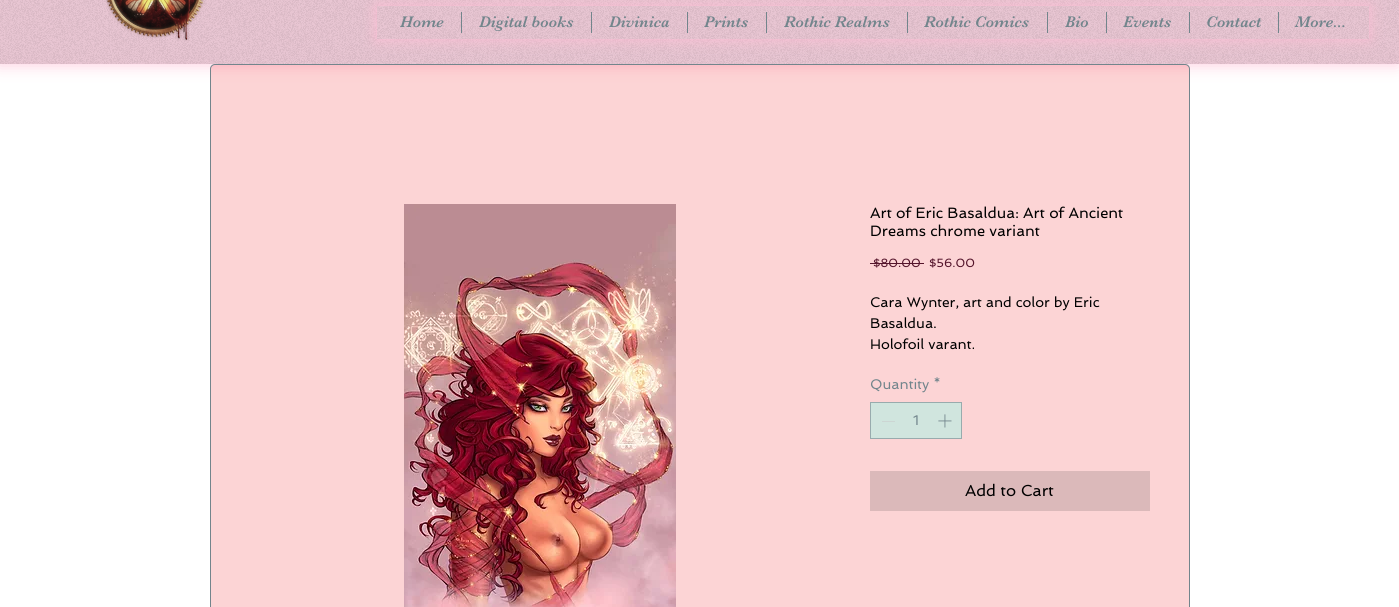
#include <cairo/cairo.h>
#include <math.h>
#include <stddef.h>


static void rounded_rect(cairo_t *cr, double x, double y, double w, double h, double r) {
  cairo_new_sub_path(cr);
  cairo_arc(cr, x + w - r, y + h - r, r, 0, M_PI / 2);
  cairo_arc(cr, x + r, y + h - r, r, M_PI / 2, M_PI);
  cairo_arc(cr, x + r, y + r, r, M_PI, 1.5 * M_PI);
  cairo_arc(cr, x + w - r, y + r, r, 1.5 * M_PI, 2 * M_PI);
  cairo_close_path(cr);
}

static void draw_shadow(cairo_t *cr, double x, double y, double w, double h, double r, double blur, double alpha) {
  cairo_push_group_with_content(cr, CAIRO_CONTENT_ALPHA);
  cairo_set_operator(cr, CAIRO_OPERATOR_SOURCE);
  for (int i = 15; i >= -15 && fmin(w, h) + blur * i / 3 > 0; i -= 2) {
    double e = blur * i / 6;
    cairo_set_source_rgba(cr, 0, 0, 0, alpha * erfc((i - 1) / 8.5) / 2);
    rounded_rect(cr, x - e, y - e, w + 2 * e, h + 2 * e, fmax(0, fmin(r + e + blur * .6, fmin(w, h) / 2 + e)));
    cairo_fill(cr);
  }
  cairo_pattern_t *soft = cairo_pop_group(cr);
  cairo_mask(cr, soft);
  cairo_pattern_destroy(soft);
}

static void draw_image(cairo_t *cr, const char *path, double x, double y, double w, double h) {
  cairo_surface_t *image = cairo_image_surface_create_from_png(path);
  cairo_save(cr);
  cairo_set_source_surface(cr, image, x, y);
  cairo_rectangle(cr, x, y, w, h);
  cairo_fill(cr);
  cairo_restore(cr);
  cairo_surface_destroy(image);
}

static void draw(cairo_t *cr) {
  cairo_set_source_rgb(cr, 1, 1, 1);
  cairo_paint(cr);
  cairo_set_source_rgb(cr, 1, 190 / 255.0, 213 / 255.0);
  draw_shadow(cr, -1, -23, 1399, 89, 0, 7.5, 0.7);
  cairo_set_source_rgb(cr, 232 / 255.0, 197 / 255.0, 210 / 255.0);
  cairo_rectangle(cr, 0, 0, 1399, 64);
  cairo_fill(cr);
  draw_image(cr, "images/1.png", 0, 0, 1399, 64);
  draw_image(cr, "images/2.png", 105, 0, 100, 42);
  cairo_save(cr);
  cairo_set_fill_rule(cr, CAIRO_FILL_RULE_EVEN_ODD);
  cairo_new_path(cr);
  cairo_move_to(cr, 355, 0);
  cairo_line_to(cr, 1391, 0);
  cairo_line_to(cr, 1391, 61);
  cairo_line_to(cr, 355, 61);
  cairo_close_path(cr);
  cairo_move_to(cr, 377, 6);
  cairo_line_to(cr, 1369, 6);
  cairo_line_to(cr, 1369, 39);
  cairo_line_to(cr, 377, 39);
  cairo_close_path(cr);
  cairo_clip(cr);
  cairo_set_source_rgb(cr, 1, 190 / 255.0, 213 / 255.0);
  draw_shadow(cr, 377, 6, 992, 33, 0, 7, 1);
  cairo_restore(cr);
  cairo_set_source_rgb(cr, 114 / 255.0, 133 / 255.0, 140 / 255.0);
  cairo_rectangle(cr, 461, 12, 1, 21);
  cairo_fill(cr);
  cairo_rectangle(cr, 591, 12, 1, 21);
  cairo_fill(cr);
  cairo_rectangle(cr, 687, 12, 1, 21);
  cairo_fill(cr);
  cairo_rectangle(cr, 766, 12, 1, 21);
  cairo_fill(cr);
  cairo_rectangle(cr, 907, 12, 1, 21);
  cairo_fill(cr);
  cairo_rectangle(cr, 1047, 12, 1, 21);
  cairo_fill(cr);
  cairo_rectangle(cr, 1106, 12, 1, 21);
  cairo_fill(cr);
  cairo_rectangle(cr, 1189, 12, 1, 21);
  cairo_fill(cr);
  cairo_rectangle(cr, 1278, 12, 1, 21);
  cairo_fill(cr);
  cairo_set_source_rgba(cr, 237 / 255.0, 28 / 255.0, 36 / 255.0, 0.19);
  rounded_rect(cr, 210.5, 64.5, 979, 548, 4.5);
  cairo_fill_preserve(cr);
  cairo_set_source_rgb(cr, 114 / 255.0, 133 / 255.0, 140 / 255.0);
  cairo_set_line_width(cr, 1);
  cairo_stroke(cr);
  draw_image(cr, "images/3.png", 404, 204, 272, 403);
  cairo_set_source_rgb(cr, 84 / 255.0, 20 / 255.0, 43 / 255.0);
  cairo_rectangle(cr, 870, 263, 54, 1);
  cairo_fill(cr);
  cairo_set_source_rgb(cr, 208 / 255.0, 229 / 255.0, 222 / 255.0);
  cairo_rectangle(cr, 870.5, 402.5, 91, 36);
  cairo_fill_preserve(cr);
  cairo_set_source_rgb(cr, 152 / 255.0, 171 / 255.0, 173 / 255.0);
  cairo_stroke(cr);
  cairo_set_source_rgb(cr, 204 / 255.0, 214 / 255.0, 211 / 255.0);
  cairo_rectangle(cr, 882, 421, 13, 1);
  cairo_fill(cr);
  draw_image(cr, "images/4.png", 938, 414, 14, 14);
  cairo_set_source_rgb(cr, 219 / 255.0, 185 / 255.0, 186 / 255.0);
  cairo_rectangle(cr, 870, 471, 280, 40);
  cairo_fill(cr);
  cairo_select_font_face(cr, "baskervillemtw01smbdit", CAIRO_FONT_SLANT_NORMAL, CAIRO_FONT_WEIGHT_NORMAL);
  cairo_set_font_size(cr, 16);
  cairo_set_source_rgb(cr, 114 / 255.0, 133 / 255.0, 140 / 255.0);
  cairo_move_to(cr, 400, 27);
  cairo_show_text(cr, "Home");
  cairo_move_to(cr, 479, 27);
  cairo_show_text(cr, "Digital books");
  cairo_move_to(cr, 609, 27);
  cairo_show_text(cr, "Divinica");
  cairo_move_to(cr, 704, 27);
  cairo_show_text(cr, "Prints");
  cairo_move_to(cr, 784, 27);
  cairo_show_text(cr, "Rothic Realms");
  cairo_move_to(cr, 924, 27);
  cairo_show_text(cr, "Rothic Comics");
  cairo_move_to(cr, 1065, 27);
  cairo_show_text(cr, "Bio");
  cairo_move_to(cr, 1123, 27);
  cairo_show_text(cr, "Events");
  cairo_move_to(cr, 1206, 27);
  cairo_show_text(cr, "Contact");
  cairo_move_to(cr, 1295, 27);
  cairo_show_text(cr, "More...");
  cairo_select_font_face(cr, "Spinnaker", CAIRO_FONT_SLANT_NORMAL, CAIRO_FONT_WEIGHT_NORMAL);
  cairo_set_font_size(cr, 15);
  cairo_set_source_rgb(cr, 0, 0, 0);
  cairo_move_to(cr, 870, 218);
  cairo_show_text(cr, "Art of Eric Basaldua: Art of Ancient");
  cairo_move_to(cr, 870, 236);
  cairo_show_text(cr, "Dreams chrome variant");
  cairo_set_font_size(cr, 12);
  cairo_set_source_rgb(cr, 84 / 255.0, 20 / 255.0, 43 / 255.0);
  cairo_move_to(cr, 873, 267);
  cairo_show_text(cr, "$80.00");
  cairo_move_to(cr, 929, 267);
  cairo_show_text(cr, "$56.00");
  cairo_set_font_size(cr, 14);
  cairo_set_source_rgb(cr, 0, 0, 0);
  cairo_move_to(cr, 870, 307);
  cairo_show_text(cr, "Cara Wynter, art and color by Eric");
  cairo_move_to(cr, 870, 328);
  cairo_show_text(cr, "Basaldua.");
  cairo_move_to(cr, 870, 349);
  cairo_show_text(cr, "Holofoil varant.");
  cairo_set_source_rgb(cr, 114 / 255.0, 133 / 255.0, 140 / 255.0);
  cairo_move_to(cr, 870, 389);
  cairo_show_text(cr, "Quantity *");
  cairo_move_to(cr, 913, 425);
  cairo_show_text(cr, "1");
  cairo_set_font_size(cr, 16);
  cairo_set_source_rgb(cr, 0, 0, 0);
  cairo_move_to(cr, 965, 496);
  cairo_show_text(cr, "Add to Cart");
}

int main(void) {
  cairo_surface_t *surface = cairo_image_surface_create(CAIRO_FORMAT_RGB24, 1399, 607);
  cairo_t *cr = cairo_create(surface);
  cairo_font_options_t *options = cairo_font_options_create();
  cairo_font_options_set_hint_metrics(options, CAIRO_HINT_METRICS_OFF);
  cairo_font_options_set_hint_style(options, CAIRO_HINT_STYLE_NONE);
  cairo_set_font_options(cr, options);
  cairo_set_miter_limit(cr, 4);
  draw(cr);
  cairo_surface_write_to_png(surface, "out.png");
  cairo_font_options_destroy(options);
  cairo_destroy(cr);
  cairo_surface_destroy(surface);
  return 0;
}
